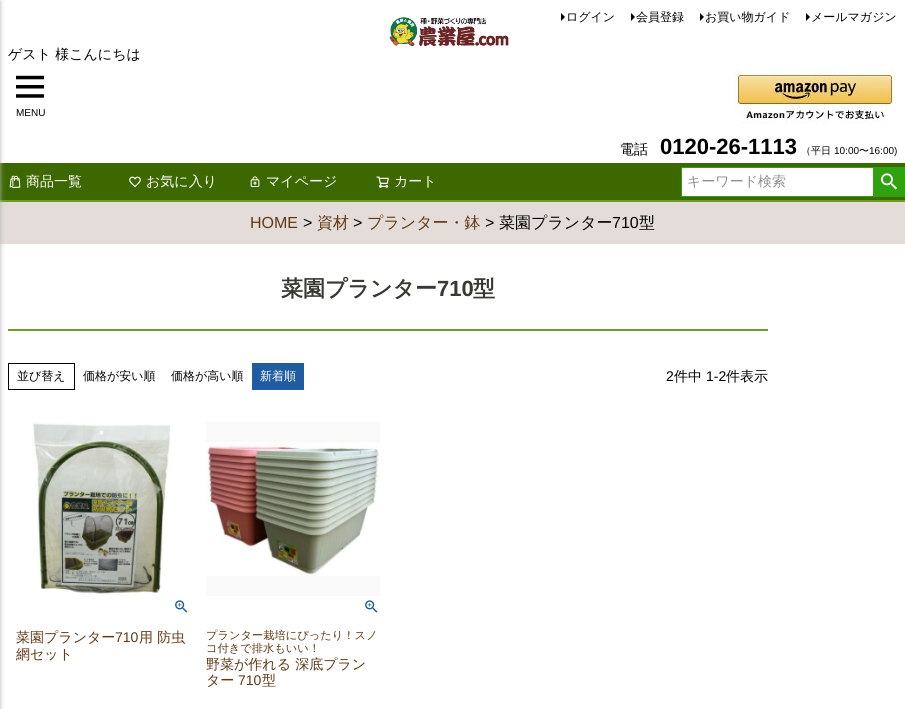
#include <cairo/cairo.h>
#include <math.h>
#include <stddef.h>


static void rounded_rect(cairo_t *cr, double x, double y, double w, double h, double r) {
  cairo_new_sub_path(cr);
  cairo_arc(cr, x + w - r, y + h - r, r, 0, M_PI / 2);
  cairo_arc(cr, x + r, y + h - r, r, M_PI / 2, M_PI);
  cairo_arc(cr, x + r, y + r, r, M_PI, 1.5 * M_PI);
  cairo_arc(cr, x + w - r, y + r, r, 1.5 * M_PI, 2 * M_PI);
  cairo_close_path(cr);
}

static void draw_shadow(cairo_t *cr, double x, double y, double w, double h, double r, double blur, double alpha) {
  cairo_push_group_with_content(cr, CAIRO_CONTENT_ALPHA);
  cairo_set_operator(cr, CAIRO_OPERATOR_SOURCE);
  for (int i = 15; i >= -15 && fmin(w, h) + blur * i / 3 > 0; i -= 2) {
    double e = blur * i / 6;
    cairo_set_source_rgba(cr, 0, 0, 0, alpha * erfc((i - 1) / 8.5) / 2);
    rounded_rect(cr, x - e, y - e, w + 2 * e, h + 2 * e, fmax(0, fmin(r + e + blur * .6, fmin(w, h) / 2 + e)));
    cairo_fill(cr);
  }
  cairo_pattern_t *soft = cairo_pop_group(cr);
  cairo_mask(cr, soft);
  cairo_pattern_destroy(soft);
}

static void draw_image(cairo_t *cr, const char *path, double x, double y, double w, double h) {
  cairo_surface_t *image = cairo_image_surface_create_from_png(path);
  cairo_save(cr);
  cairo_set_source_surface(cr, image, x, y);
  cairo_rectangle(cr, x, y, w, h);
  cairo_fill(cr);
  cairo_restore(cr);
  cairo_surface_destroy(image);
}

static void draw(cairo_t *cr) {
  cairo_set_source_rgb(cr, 1, 1, 1);
  cairo_paint(cr);
  draw_image(cr, "images/1.png", 389, 17, 120, 30);
  cairo_set_source_rgb(cr, 0, 0, 0);
  cairo_new_path(cr);
  cairo_move_to(cr, 561, 21);
  cairo_line_to(cr, 561, 13);
  cairo_line_to(cr, 565, 17);
  cairo_close_path(cr);
  cairo_fill(cr);
  cairo_new_path(cr);
  cairo_move_to(cr, 631, 21);
  cairo_line_to(cr, 631, 13);
  cairo_line_to(cr, 635, 17);
  cairo_close_path(cr);
  cairo_fill(cr);
  cairo_new_path(cr);
  cairo_move_to(cr, 700, 21);
  cairo_line_to(cr, 700, 13);
  cairo_line_to(cr, 704, 17);
  cairo_close_path(cr);
  cairo_fill(cr);
  cairo_new_path(cr);
  cairo_move_to(cr, 806, 21);
  cairo_line_to(cr, 806, 13);
  cairo_line_to(cr, 810, 17);
  cairo_close_path(cr);
  cairo_fill(cr);
  draw_image(cr, "images/2.png", 733, 69, 164, 55);
  draw_image(cr, "images/3.png", 16, 75, 28, 23);
  cairo_set_source_rgb(cr, 61 / 255.0, 104 / 255.0, 0);
  cairo_rectangle(cr, 0, 163, 905, 37);
  cairo_fill(cr);
  cairo_set_source_rgb(cr, 112 / 255.0, 157 / 255.0, 40 / 255.0);
  cairo_rectangle(cr, 0, 200, 905, 2);
  cairo_fill(cr);
  draw_image(cr, "images/4.png", 9, 175, 12, 14);
  draw_image(cr, "images/5.png", 129, 176, 12, 12);
  draw_image(cr, "images/6.png", 250, 176, 10, 11);
  draw_image(cr, "images/7.png", 376, 176, 13, 12);
  cairo_set_source_rgb(cr, 48 / 255.0, 162 / 255.0, 15 / 255.0);
  cairo_rectangle(cr, 681, 167, 224, 30);
  cairo_fill(cr);
  cairo_set_source_rgb(cr, 1, 1, 1);
  cairo_rectangle(cr, 682, 168, 191, 28);
  cairo_fill(cr);
  draw_image(cr, "images/8.png", 881, 173, 16, 17);
  cairo_set_source_rgb(cr, 227 / 255.0, 220 / 255.0, 216 / 255.0);
  cairo_rectangle(cr, 0, 202, 905, 42);
  cairo_fill(cr);
  cairo_set_source_rgb(cr, 112 / 255.0, 157 / 255.0, 40 / 255.0);
  cairo_rectangle(cr, 8, 329, 760, 2);
  cairo_fill(cr);
  cairo_rectangle(cr, 8.5, 363.5, 66, 26);
  cairo_set_source_rgb(cr, 0, 0, 0);
  cairo_set_line_width(cr, 1);
  cairo_stroke(cr);
  cairo_set_source_rgb(cr, 178 / 255.0, 178 / 255.0, 178 / 255.0);
  draw_shadow(cr, -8, 1, 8, 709, 0, 2.5, 1);
  cairo_set_source_rgb(cr, 31 / 255.0, 93 / 255.0, 160 / 255.0);
  cairo_rectangle(cr, 252, 363, 52, 27);
  cairo_fill(cr);
  draw_image(cr, "images/9.png", 30, 422, 142, 174);
  draw_image(cr, "images/10.png", 175, 600, 13, 13);
  draw_image(cr, "images/11.png", 206, 422, 174, 174);
  draw_image(cr, "images/10.png", 365, 600, 13, 13);
  cairo_select_font_face(cr, "WenQuanYi Zen Hei Medium", CAIRO_FONT_SLANT_NORMAL, CAIRO_FONT_WEIGHT_NORMAL);
  cairo_set_font_size(cr, 12);
  cairo_set_source_rgb(cr, 0, 0, 0);
  cairo_move_to(cr, 566, 21);
  cairo_show_text(cr, "ログイン");
  cairo_move_to(cr, 636, 21);
  cairo_show_text(cr, "会員登録");
  cairo_move_to(cr, 705, 21);
  cairo_show_text(cr, "お買い物ガイド");
  cairo_move_to(cr, 811, 21);
  cairo_show_text(cr, "メールマガジン");
  cairo_set_font_size(cr, 14);
  cairo_move_to(cr, 620, 154);
  cairo_show_text(cr, "電話");
  cairo_select_font_face(cr, "Liberation Sans", CAIRO_FONT_SLANT_NORMAL, CAIRO_FONT_WEIGHT_BOLD);
  cairo_set_font_size(cr, 22);
  cairo_move_to(cr, 660, 154);
  cairo_show_text(cr, "0120-26-1113");
  cairo_select_font_face(cr, "WenQuanYi Zen Hei Medium", CAIRO_FONT_SLANT_NORMAL, CAIRO_FONT_WEIGHT_NORMAL);
  cairo_set_font_size(cr, 10);
  cairo_move_to(cr, 801, 154);
  cairo_show_text(cr, "（平日");
  cairo_select_font_face(cr, "Liberation Sans", CAIRO_FONT_SLANT_NORMAL, CAIRO_FONT_WEIGHT_NORMAL);
  cairo_move_to(cr, 834, 154);
  cairo_show_text(cr, "10:00");
  cairo_select_font_face(cr, "WenQuanYi Zen Hei Medium", CAIRO_FONT_SLANT_NORMAL, CAIRO_FONT_WEIGHT_NORMAL);
  cairo_move_to(cr, 859, 154);
  cairo_show_text(cr, "〜");
  cairo_select_font_face(cr, "Liberation Sans", CAIRO_FONT_SLANT_NORMAL, CAIRO_FONT_WEIGHT_NORMAL);
  cairo_move_to(cr, 869, 154);
  cairo_show_text(cr, "16:00)");
  cairo_select_font_face(cr, "WenQuanYi Zen Hei Medium", CAIRO_FONT_SLANT_NORMAL, CAIRO_FONT_WEIGHT_NORMAL);
  cairo_set_font_size(cr, 14);
  cairo_move_to(cr, 8, 59);
  cairo_show_text(cr, "ゲスト 様こんにちは");
  cairo_select_font_face(cr, "Liberation Sans", CAIRO_FONT_SLANT_NORMAL, CAIRO_FONT_WEIGHT_NORMAL);
  cairo_set_font_size(cr, 10);
  cairo_move_to(cr, 16, 116);
  cairo_show_text(cr, "MENU");
  cairo_select_font_face(cr, "WenQuanYi Zen Hei Medium", CAIRO_FONT_SLANT_NORMAL, CAIRO_FONT_WEIGHT_NORMAL);
  cairo_set_font_size(cr, 14);
  cairo_set_source_rgb(cr, 1, 1, 1);
  cairo_move_to(cr, 26, 186);
  cairo_show_text(cr, "商品一覧");
  cairo_move_to(cr, 146, 186);
  cairo_show_text(cr, "お気に入り");
  cairo_move_to(cr, 266, 186);
  cairo_show_text(cr, "マイページ");
  cairo_move_to(cr, 394, 186);
  cairo_show_text(cr, "カート");
  cairo_set_source_rgb(cr, 145 / 255.0, 145 / 255.0, 145 / 255.0);
  cairo_move_to(cr, 687, 186);
  cairo_show_text(cr, "キーワード検索");
  cairo_select_font_face(cr, "Liberation Sans", CAIRO_FONT_SLANT_NORMAL, CAIRO_FONT_WEIGHT_NORMAL);
  cairo_set_font_size(cr, 16);
  cairo_set_source_rgb(cr, 96 / 255.0, 56 / 255.0, 19 / 255.0);
  cairo_move_to(cr, 250, 228);
  cairo_show_text(cr, "HOME");
  cairo_set_source_rgb(cr, 0, 0, 0);
  cairo_move_to(cr, 303, 228);
  cairo_show_text(cr, ">");
  cairo_select_font_face(cr, "WenQuanYi Zen Hei Medium", CAIRO_FONT_SLANT_NORMAL, CAIRO_FONT_WEIGHT_NORMAL);
  cairo_set_source_rgb(cr, 96 / 255.0, 56 / 255.0, 19 / 255.0);
  cairo_move_to(cr, 317, 228);
  cairo_show_text(cr, "資材");
  cairo_select_font_face(cr, "Liberation Sans", CAIRO_FONT_SLANT_NORMAL, CAIRO_FONT_WEIGHT_NORMAL);
  cairo_set_source_rgb(cr, 0, 0, 0);
  cairo_move_to(cr, 353, 228);
  cairo_show_text(cr, ">");
  cairo_select_font_face(cr, "WenQuanYi Zen Hei Medium", CAIRO_FONT_SLANT_NORMAL, CAIRO_FONT_WEIGHT_NORMAL);
  cairo_set_source_rgb(cr, 96 / 255.0, 56 / 255.0, 19 / 255.0);
  cairo_move_to(cr, 367, 228);
  cairo_show_text(cr, "プランター・鉢");
  cairo_select_font_face(cr, "Liberation Sans", CAIRO_FONT_SLANT_NORMAL, CAIRO_FONT_WEIGHT_NORMAL);
  cairo_set_source_rgb(cr, 0, 0, 0);
  cairo_move_to(cr, 485, 228);
  cairo_show_text(cr, ">");
  cairo_select_font_face(cr, "WenQuanYi Zen Hei Medium", CAIRO_FONT_SLANT_NORMAL, CAIRO_FONT_WEIGHT_NORMAL);
  cairo_move_to(cr, 499, 228);
  cairo_show_text(cr, "菜園プランター");
  cairo_select_font_face(cr, "Liberation Sans", CAIRO_FONT_SLANT_NORMAL, CAIRO_FONT_WEIGHT_NORMAL);
  cairo_move_to(cr, 612, 228);
  cairo_show_text(cr, "710");
  cairo_select_font_face(cr, "WenQuanYi Zen Hei Medium", CAIRO_FONT_SLANT_NORMAL, CAIRO_FONT_WEIGHT_NORMAL);
  cairo_move_to(cr, 639, 228);
  cairo_show_text(cr, "型");
  cairo_select_font_face(cr, "WenQuanYi Zen Hei", CAIRO_FONT_SLANT_NORMAL, CAIRO_FONT_WEIGHT_BOLD);
  cairo_set_font_size(cr, 22);
  cairo_set_source_rgb(cr, 55 / 255.0, 57 / 255.0, 50 / 255.0);
  cairo_move_to(cr, 281, 296);
  cairo_show_text(cr, "菜園プランター");
  cairo_select_font_face(cr, "Liberation Sans", CAIRO_FONT_SLANT_NORMAL, CAIRO_FONT_WEIGHT_BOLD);
  cairo_move_to(cr, 437, 296);
  cairo_show_text(cr, "710");
  cairo_select_font_face(cr, "WenQuanYi Zen Hei", CAIRO_FONT_SLANT_NORMAL, CAIRO_FONT_WEIGHT_BOLD);
  cairo_move_to(cr, 473, 296);
  cairo_show_text(cr, "型");
  cairo_select_font_face(cr, "WenQuanYi Zen Hei Medium", CAIRO_FONT_SLANT_NORMAL, CAIRO_FONT_WEIGHT_NORMAL);
  cairo_set_font_size(cr, 12);
  cairo_set_source_rgb(cr, 0, 0, 0);
  cairo_move_to(cr, 17, 380);
  cairo_show_text(cr, "並び替え");
  cairo_move_to(cr, 83, 380);
  cairo_show_text(cr, "価格が安い順");
  cairo_move_to(cr, 171, 380);
  cairo_show_text(cr, "価格が高い順");
  cairo_set_source_rgb(cr, 1, 1, 1);
  cairo_move_to(cr, 260, 380);
  cairo_show_text(cr, "新着順");
  cairo_select_font_face(cr, "Liberation Sans", CAIRO_FONT_SLANT_NORMAL, CAIRO_FONT_WEIGHT_NORMAL);
  cairo_set_font_size(cr, 14);
  cairo_set_source_rgb(cr, 0, 0, 0);
  cairo_move_to(cr, 666, 381);
  cairo_show_text(cr, "2");
  cairo_select_font_face(cr, "WenQuanYi Zen Hei Medium", CAIRO_FONT_SLANT_NORMAL, CAIRO_FONT_WEIGHT_NORMAL);
  cairo_move_to(cr, 674, 381);
  cairo_show_text(cr, "件中");
  cairo_select_font_face(cr, "Liberation Sans", CAIRO_FONT_SLANT_NORMAL, CAIRO_FONT_WEIGHT_NORMAL);
  cairo_move_to(cr, 706, 381);
  cairo_show_text(cr, "1-2");
  cairo_select_font_face(cr, "WenQuanYi Zen Hei Medium", CAIRO_FONT_SLANT_NORMAL, CAIRO_FONT_WEIGHT_NORMAL);
  cairo_move_to(cr, 726, 381);
  cairo_show_text(cr, "件表示");
  cairo_set_source_rgb(cr, 96 / 255.0, 56 / 255.0, 19 / 255.0);
  cairo_move_to(cr, 16, 642);
  cairo_show_text(cr, "菜園プランター");
  cairo_select_font_face(cr, "Liberation Sans", CAIRO_FONT_SLANT_NORMAL, CAIRO_FONT_WEIGHT_NORMAL);
  cairo_move_to(cr, 115, 642);
  cairo_show_text(cr, "710");
  cairo_select_font_face(cr, "WenQuanYi Zen Hei Medium", CAIRO_FONT_SLANT_NORMAL, CAIRO_FONT_WEIGHT_NORMAL);
  cairo_move_to(cr, 139, 642);
  cairo_show_text(cr, "用 防虫");
  cairo_move_to(cr, 16, 659);
  cairo_show_text(cr, "網セット");
  cairo_set_font_size(cr, 11.25);
  cairo_move_to(cr, 206, 639);
  cairo_show_text(cr, "プランター栽培にぴったり！スノ");
  cairo_move_to(cr, 206, 652);
  cairo_show_text(cr, "コ付きで排水もいい！");
  cairo_set_font_size(cr, 14);
  cairo_move_to(cr, 206, 669);
  cairo_show_text(cr, "野菜が作れる 深底プラン");
  cairo_move_to(cr, 206, 685);
  cairo_show_text(cr, "ター");
  cairo_select_font_face(cr, "Liberation Sans", CAIRO_FONT_SLANT_NORMAL, CAIRO_FONT_WEIGHT_NORMAL);
  cairo_move_to(cr, 238, 685);
  cairo_show_text(cr, "710");
  cairo_select_font_face(cr, "WenQuanYi Zen Hei Medium", CAIRO_FONT_SLANT_NORMAL, CAIRO_FONT_WEIGHT_NORMAL);
  cairo_move_to(cr, 262, 685);
  cairo_show_text(cr, "型");
}

int main(void) {
  cairo_surface_t *surface = cairo_image_surface_create(CAIRO_FORMAT_RGB24, 905, 709);
  cairo_t *cr = cairo_create(surface);
  cairo_font_options_t *options = cairo_font_options_create();
  cairo_font_options_set_hint_metrics(options, CAIRO_HINT_METRICS_OFF);
  cairo_font_options_set_hint_style(options, CAIRO_HINT_STYLE_NONE);
  cairo_set_font_options(cr, options);
  cairo_set_miter_limit(cr, 4);
  draw(cr);
  cairo_surface_write_to_png(surface, "out.png");
  cairo_font_options_destroy(options);
  cairo_destroy(cr);
  cairo_surface_destroy(surface);
  return 0;
}
